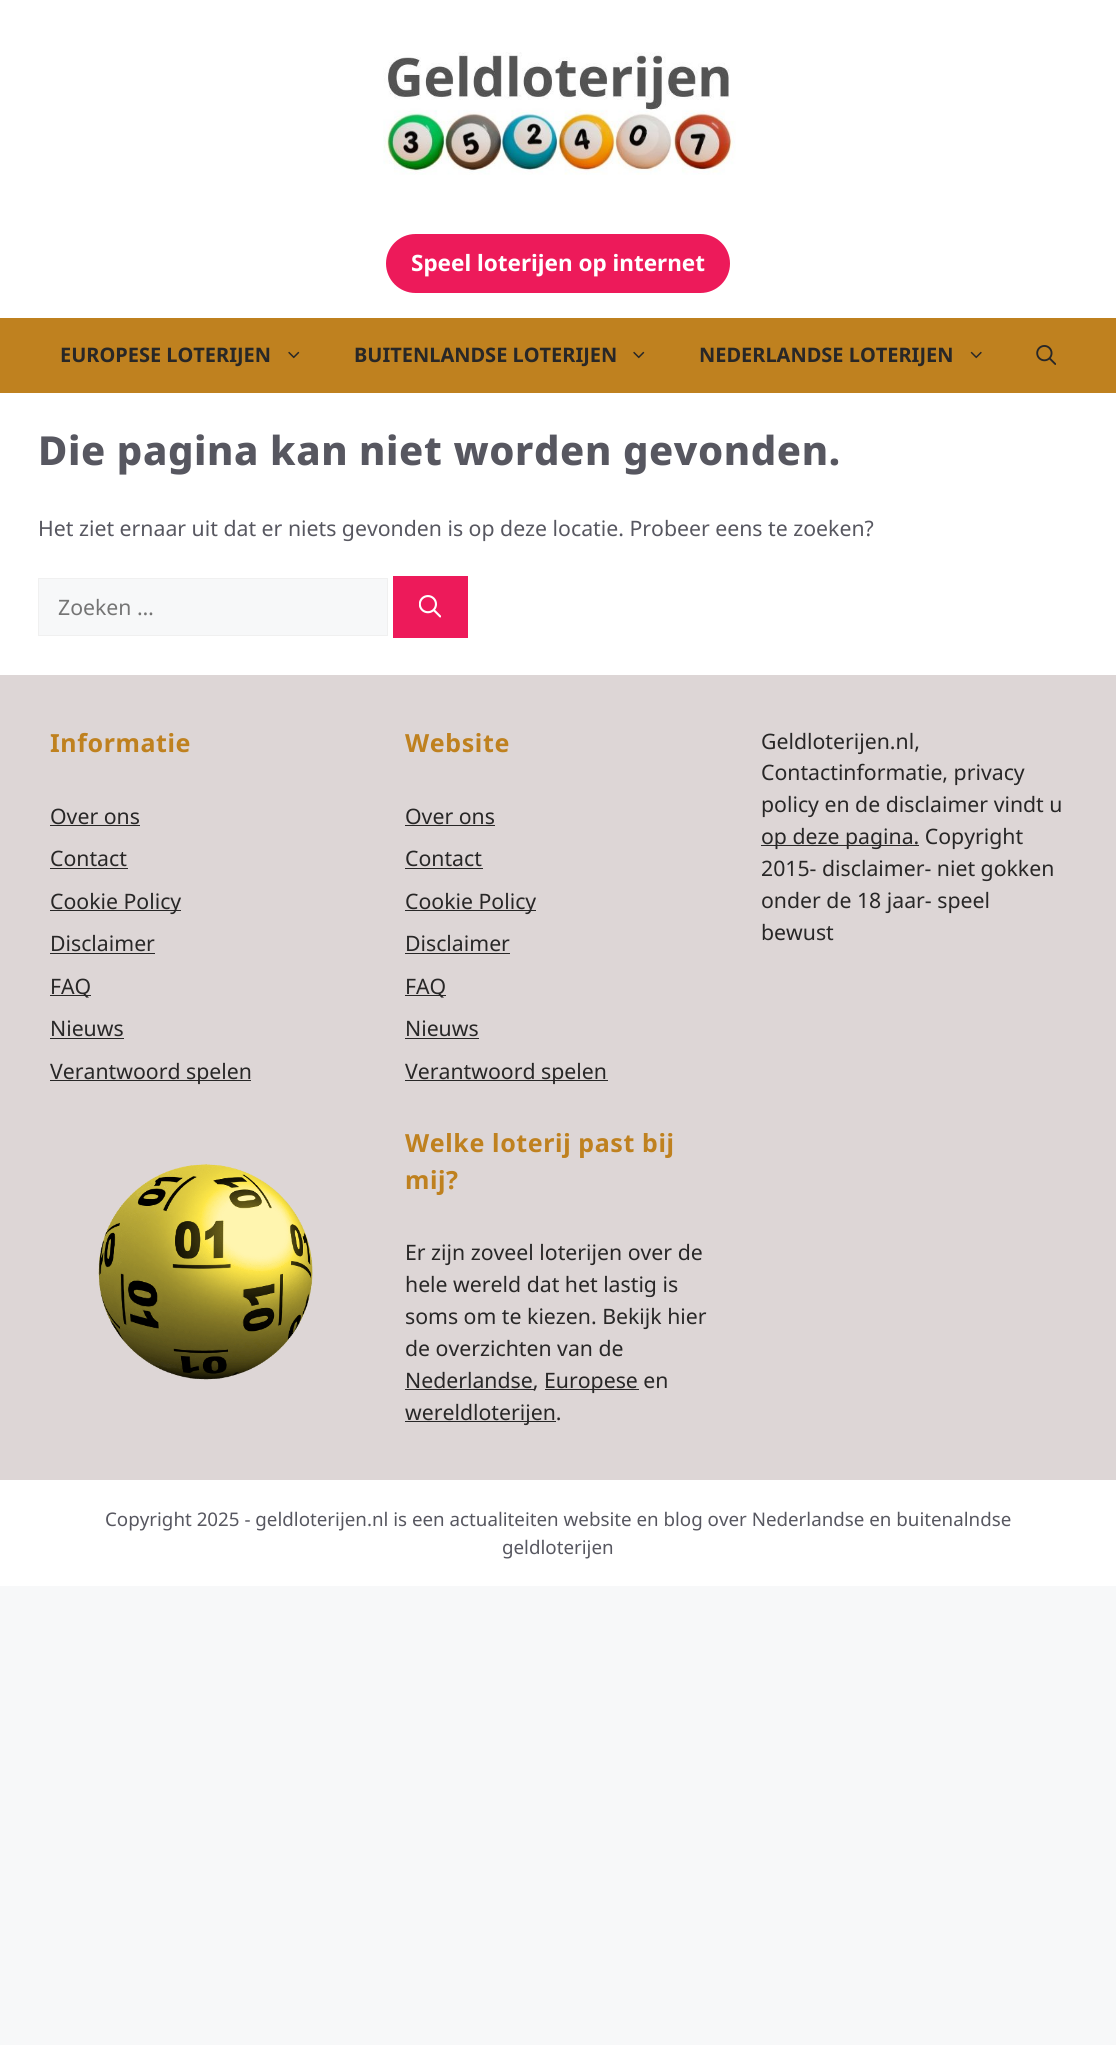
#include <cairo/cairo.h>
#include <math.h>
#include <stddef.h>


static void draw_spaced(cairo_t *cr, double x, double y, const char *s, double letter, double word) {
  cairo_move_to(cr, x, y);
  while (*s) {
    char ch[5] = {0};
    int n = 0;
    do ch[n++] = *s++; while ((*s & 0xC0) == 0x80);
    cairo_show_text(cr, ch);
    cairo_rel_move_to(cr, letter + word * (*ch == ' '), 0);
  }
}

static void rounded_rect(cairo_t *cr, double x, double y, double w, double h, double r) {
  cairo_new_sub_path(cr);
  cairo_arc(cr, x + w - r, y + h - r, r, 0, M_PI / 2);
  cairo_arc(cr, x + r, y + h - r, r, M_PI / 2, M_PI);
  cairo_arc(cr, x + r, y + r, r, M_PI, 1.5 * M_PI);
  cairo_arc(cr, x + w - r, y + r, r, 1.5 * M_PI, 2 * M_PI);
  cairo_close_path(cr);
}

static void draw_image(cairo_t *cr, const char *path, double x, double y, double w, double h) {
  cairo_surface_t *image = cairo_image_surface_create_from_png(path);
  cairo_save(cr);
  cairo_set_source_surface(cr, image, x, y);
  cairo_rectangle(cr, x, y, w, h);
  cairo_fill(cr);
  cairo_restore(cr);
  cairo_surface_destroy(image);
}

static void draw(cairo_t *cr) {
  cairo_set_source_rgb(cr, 247 / 255.0, 248 / 255.0, 249 / 255.0);
  cairo_paint(cr);
  cairo_set_source_rgb(cr, 1, 1, 1);
  cairo_rectangle(cr, 0, 0, 1116, 318);
  cairo_fill(cr);
  draw_image(cr, "images/1.png", 383, 52, 353, 123);
  cairo_set_source_rgb(cr, 237 / 255.0, 26 / 255.0, 90 / 255.0);
  rounded_rect(cr, 386, 234, 344, 59, 29.5);
  cairo_fill(cr);
  cairo_set_source_rgb(cr, 191 / 255.0, 129 / 255.0, 31 / 255.0);
  cairo_rectangle(cr, 0, 318, 1116, 75);
  cairo_fill(cr);
  draw_image(cr, "images/2.png", 288, 351, 12, 8);
  draw_image(cr, "images/2.png", 633, 351, 12, 8);
  draw_image(cr, "images/3.png", 970, 351, 12, 8);
  draw_image(cr, "images/4.png", 1036, 345, 20, 20);
  cairo_set_source_rgb(cr, 1, 1, 1);
  cairo_rectangle(cr, 0, 393, 1116, 282);
  cairo_fill(cr);
  cairo_set_source_rgb(cr, 247 / 255.0, 248 / 255.0, 249 / 255.0);
  cairo_rectangle(cr, 38.5, 578.5, 349, 57);
  cairo_fill_preserve(cr);
  cairo_set_source_rgb(cr, 240 / 255.0, 240 / 255.0, 240 / 255.0);
  cairo_set_line_width(cr, 1);
  cairo_stroke(cr);
  cairo_set_source_rgb(cr, 237 / 255.0, 26 / 255.0, 90 / 255.0);
  cairo_rectangle(cr, 393, 576, 75, 62);
  cairo_fill(cr);
  draw_image(cr, "images/5.png", 419, 595, 22, 23);
  cairo_set_source_rgb(cr, 221 / 255.0, 214 / 255.0, 214 / 255.0);
  cairo_rectangle(cr, 0, 675, 1116, 805);
  cairo_fill(cr);
  cairo_set_source_rgb(cr, 40 / 255.0, 39 / 255.0, 39 / 255.0);
  cairo_rectangle(cr, 50, 825, 90, 1);
  cairo_fill(cr);
  cairo_rectangle(cr, 50, 868, 78, 1);
  cairo_fill(cr);
  cairo_rectangle(cr, 50, 910, 131, 1);
  cairo_fill(cr);
  cairo_rectangle(cr, 50, 953, 105, 1);
  cairo_fill(cr);
  cairo_rectangle(cr, 50, 995, 41, 1);
  cairo_fill(cr);
  cairo_rectangle(cr, 50, 1038, 74, 1);
  cairo_fill(cr);
  cairo_rectangle(cr, 50, 1080, 201, 1);
  cairo_fill(cr);
  draw_image(cr, "images/6.png", 98, 1164, 215, 216);
  cairo_rectangle(cr, 405, 825, 90, 1);
  cairo_fill(cr);
  cairo_rectangle(cr, 405, 868, 78, 1);
  cairo_fill(cr);
  cairo_rectangle(cr, 405, 910, 131, 1);
  cairo_fill(cr);
  cairo_rectangle(cr, 405, 953, 105, 1);
  cairo_fill(cr);
  cairo_rectangle(cr, 405, 995, 41, 1);
  cairo_fill(cr);
  cairo_rectangle(cr, 405, 1038, 74, 1);
  cairo_fill(cr);
  cairo_rectangle(cr, 405, 1080, 203, 1);
  cairo_fill(cr);
  cairo_rectangle(cr, 405, 1389, 129, 1);
  cairo_fill(cr);
  cairo_rectangle(cr, 545, 1389, 94, 1);
  cairo_fill(cr);
  cairo_rectangle(cr, 405, 1421, 151, 1);
  cairo_fill(cr);
  cairo_rectangle(cr, 761, 845, 158, 1);
  cairo_fill(cr);
  cairo_set_source_rgb(cr, 1, 1, 1);
  cairo_rectangle(cr, 0, 1480, 1116, 106);
  cairo_fill(cr);
  cairo_select_font_face(cr, "Noto Sans", CAIRO_FONT_SLANT_NORMAL, CAIRO_FONT_WEIGHT_BOLD);
  cairo_set_font_size(cr, 22.5);
  cairo_move_to(cr, 411, 271);
  cairo_show_text(cr, "Speel loterijen op internet");
  cairo_set_font_size(cr, 20);
  cairo_set_source_rgb(cr, 40 / 255.0, 39 / 255.0, 39 / 255.0);
  cairo_move_to(cr, 60, 362);
  cairo_show_text(cr, "EUROPESE LOTERIJEN");
  cairo_move_to(cr, 354, 362);
  cairo_show_text(cr, "BUITENLANDSE LOTERIJEN");
  cairo_move_to(cr, 699, 362);
  cairo_show_text(cr, "NEDERLANDSE LOTERIJEN");
  cairo_select_font_face(cr, "Noto Sans ExtraBold", CAIRO_FONT_SLANT_NORMAL, CAIRO_FONT_WEIGHT_NORMAL);
  cairo_set_font_size(cr, 40);
  cairo_set_source_rgb(cr, 87 / 255.0, 87 / 255.0, 96 / 255.0);
  draw_spaced(cr, 38, 465, "Die pagina kan niet worden gevonden.", 0.6, 0);
  cairo_select_font_face(cr, "Noto Sans", CAIRO_FONT_SLANT_NORMAL, CAIRO_FONT_WEIGHT_NORMAL);
  cairo_set_font_size(cr, 21.25);
  cairo_move_to(cr, 38, 536);
  cairo_show_text(cr, "Het ziet ernaar uit dat er niets gevonden is op deze locatie. Probeer eens te zoeken?");
  cairo_set_source_rgb(cr, 117 / 255.0, 117 / 255.0, 117 / 255.0);
  cairo_move_to(cr, 58, 615);
  cairo_show_text(cr, "Zoeken …");
  cairo_select_font_face(cr, "Noto Sans", CAIRO_FONT_SLANT_NORMAL, CAIRO_FONT_WEIGHT_BOLD);
  cairo_set_font_size(cr, 25);
  cairo_set_source_rgb(cr, 191 / 255.0, 129 / 255.0, 31 / 255.0);
  draw_spaced(cr, 50, 752, "Informatie", 0.6, 0);
  cairo_select_font_face(cr, "Noto Sans", CAIRO_FONT_SLANT_NORMAL, CAIRO_FONT_WEIGHT_NORMAL);
  cairo_set_font_size(cr, 21.25);
  cairo_set_source_rgb(cr, 40 / 255.0, 39 / 255.0, 39 / 255.0);
  cairo_move_to(cr, 50, 824);
  cairo_show_text(cr, "Over ons");
  cairo_move_to(cr, 50, 866);
  cairo_show_text(cr, "Contact");
  cairo_move_to(cr, 50, 909);
  cairo_show_text(cr, "Cookie Policy");
  cairo_move_to(cr, 50, 951);
  cairo_show_text(cr, "Disclaimer");
  cairo_move_to(cr, 50, 994);
  cairo_show_text(cr, "FAQ");
  cairo_move_to(cr, 50, 1036);
  cairo_show_text(cr, "Nieuws");
  cairo_move_to(cr, 50, 1079);
  cairo_show_text(cr, "Verantwoord spelen");
  cairo_select_font_face(cr, "Noto Sans", CAIRO_FONT_SLANT_NORMAL, CAIRO_FONT_WEIGHT_BOLD);
  cairo_set_font_size(cr, 25);
  cairo_set_source_rgb(cr, 191 / 255.0, 129 / 255.0, 31 / 255.0);
  draw_spaced(cr, 405, 752, "Website", 0.6, 0);
  cairo_select_font_face(cr, "Noto Sans", CAIRO_FONT_SLANT_NORMAL, CAIRO_FONT_WEIGHT_NORMAL);
  cairo_set_font_size(cr, 21.25);
  cairo_set_source_rgb(cr, 40 / 255.0, 39 / 255.0, 39 / 255.0);
  cairo_move_to(cr, 405, 824);
  cairo_show_text(cr, "Over ons");
  cairo_move_to(cr, 405, 866);
  cairo_show_text(cr, "Contact");
  cairo_move_to(cr, 405, 909);
  cairo_show_text(cr, "Cookie Policy");
  cairo_move_to(cr, 405, 951);
  cairo_show_text(cr, "Disclaimer");
  cairo_move_to(cr, 405, 994);
  cairo_show_text(cr, "FAQ");
  cairo_move_to(cr, 405, 1036);
  cairo_show_text(cr, "Nieuws");
  cairo_move_to(cr, 405, 1079);
  cairo_show_text(cr, "Verantwoord spelen");
  cairo_select_font_face(cr, "Noto Sans", CAIRO_FONT_SLANT_NORMAL, CAIRO_FONT_WEIGHT_BOLD);
  cairo_set_font_size(cr, 25);
  cairo_set_source_rgb(cr, 191 / 255.0, 129 / 255.0, 31 / 255.0);
  draw_spaced(cr, 405, 1152, "Welke loterij past bij", 0.6, 0);
  draw_spaced(cr, 405, 1189, "mij?", 0.6, 0);
  cairo_select_font_face(cr, "Noto Sans", CAIRO_FONT_SLANT_NORMAL, CAIRO_FONT_WEIGHT_NORMAL);
  cairo_set_font_size(cr, 21.25);
  cairo_set_source_rgb(cr, 40 / 255.0, 39 / 255.0, 39 / 255.0);
  cairo_move_to(cr, 405, 1260);
  cairo_show_text(cr, "Er zijn zoveel loterijen over de");
  cairo_move_to(cr, 405, 1292);
  cairo_show_text(cr, "hele wereld dat het lastig is");
  cairo_move_to(cr, 405, 1324);
  cairo_show_text(cr, "soms om te kiezen. Bekijk hier");
  cairo_move_to(cr, 405, 1356);
  cairo_show_text(cr, "de overzichten van de");
  cairo_move_to(cr, 405, 1388);
  cairo_show_text(cr, "Nederlandse,");
  cairo_move_to(cr, 544, 1388);
  cairo_show_text(cr, "Europese en");
  cairo_move_to(cr, 405, 1420);
  cairo_show_text(cr, "wereldloterijen.");
  cairo_move_to(cr, 761, 749);
  cairo_show_text(cr, "Geldloterijen.nl,");
  cairo_move_to(cr, 761, 780);
  cairo_show_text(cr, "Contactinformatie, privacy");
  cairo_move_to(cr, 761, 812);
  cairo_show_text(cr, "policy en de disclaimer vindt u");
  cairo_move_to(cr, 761, 844);
  cairo_show_text(cr, "op deze pagina. Copyright");
  cairo_move_to(cr, 761, 876);
  cairo_show_text(cr, "2015- disclaimer- niet gokken");
  cairo_move_to(cr, 761, 908);
  cairo_show_text(cr, "onder de 18 jaar- speel");
  cairo_move_to(cr, 761, 940);
  cairo_show_text(cr, "bewust");
  cairo_set_font_size(cr, 18.75);
  cairo_set_source_rgb(cr, 87 / 255.0, 87 / 255.0, 96 / 255.0);
  cairo_move_to(cr, 105, 1526);
  cairo_show_text(cr, "Copyright 2025 - geldloterijen.nl is een actualiteiten website en blog over Nederlandse en buitenalndse");
  cairo_move_to(cr, 502, 1554);
  cairo_show_text(cr, "geldloterijen");
}

int main(void) {
  cairo_surface_t *surface = cairo_image_surface_create(CAIRO_FORMAT_RGB24, 1116, 2045);
  cairo_t *cr = cairo_create(surface);
  cairo_font_options_t *options = cairo_font_options_create();
  cairo_font_options_set_hint_metrics(options, CAIRO_HINT_METRICS_OFF);
  cairo_font_options_set_hint_style(options, CAIRO_HINT_STYLE_NONE);
  cairo_set_font_options(cr, options);
  cairo_set_miter_limit(cr, 4);
  draw(cr);
  cairo_surface_write_to_png(surface, "out.png");
  cairo_font_options_destroy(options);
  cairo_destroy(cr);
  cairo_surface_destroy(surface);
  return 0;
}
